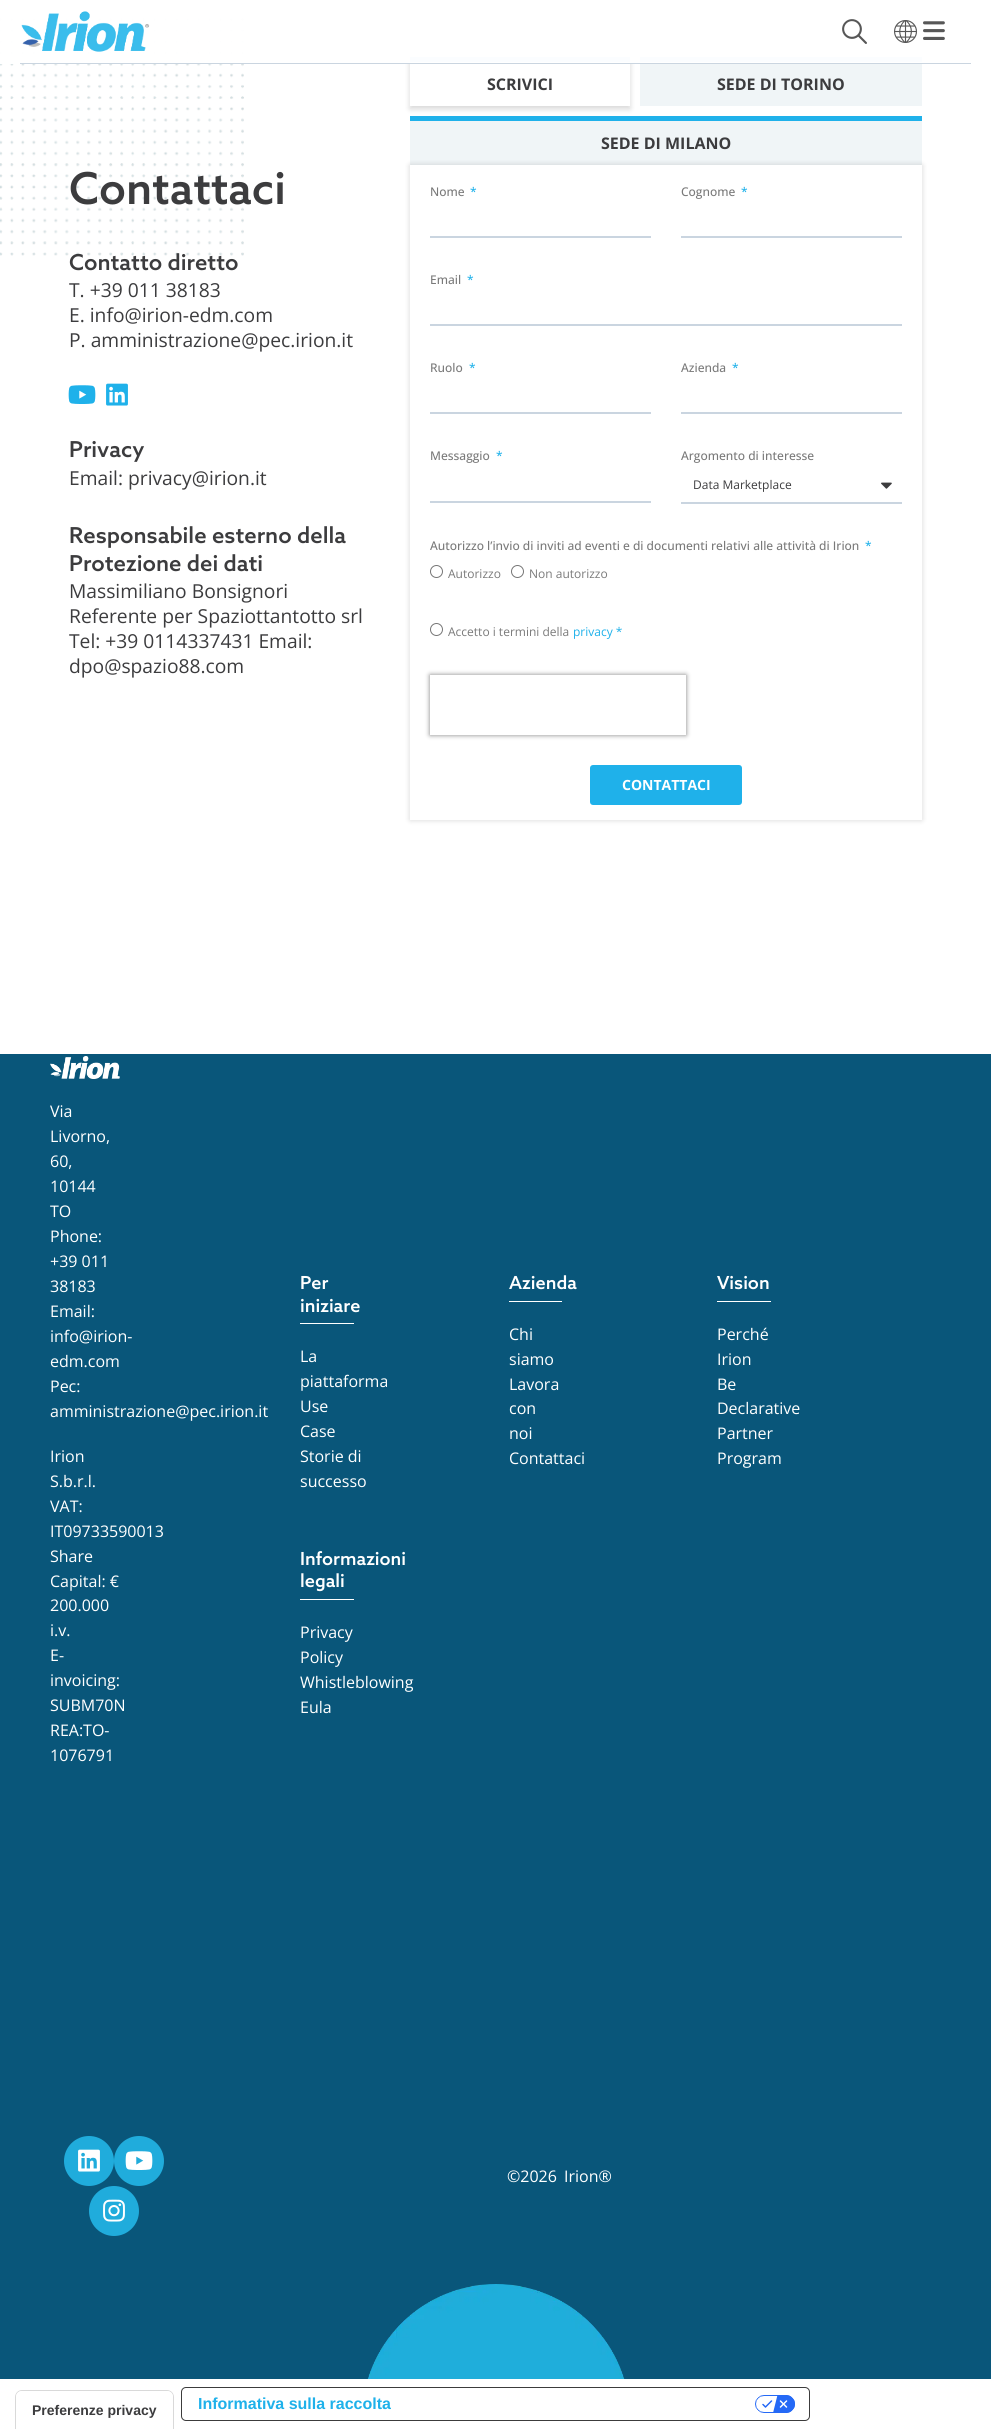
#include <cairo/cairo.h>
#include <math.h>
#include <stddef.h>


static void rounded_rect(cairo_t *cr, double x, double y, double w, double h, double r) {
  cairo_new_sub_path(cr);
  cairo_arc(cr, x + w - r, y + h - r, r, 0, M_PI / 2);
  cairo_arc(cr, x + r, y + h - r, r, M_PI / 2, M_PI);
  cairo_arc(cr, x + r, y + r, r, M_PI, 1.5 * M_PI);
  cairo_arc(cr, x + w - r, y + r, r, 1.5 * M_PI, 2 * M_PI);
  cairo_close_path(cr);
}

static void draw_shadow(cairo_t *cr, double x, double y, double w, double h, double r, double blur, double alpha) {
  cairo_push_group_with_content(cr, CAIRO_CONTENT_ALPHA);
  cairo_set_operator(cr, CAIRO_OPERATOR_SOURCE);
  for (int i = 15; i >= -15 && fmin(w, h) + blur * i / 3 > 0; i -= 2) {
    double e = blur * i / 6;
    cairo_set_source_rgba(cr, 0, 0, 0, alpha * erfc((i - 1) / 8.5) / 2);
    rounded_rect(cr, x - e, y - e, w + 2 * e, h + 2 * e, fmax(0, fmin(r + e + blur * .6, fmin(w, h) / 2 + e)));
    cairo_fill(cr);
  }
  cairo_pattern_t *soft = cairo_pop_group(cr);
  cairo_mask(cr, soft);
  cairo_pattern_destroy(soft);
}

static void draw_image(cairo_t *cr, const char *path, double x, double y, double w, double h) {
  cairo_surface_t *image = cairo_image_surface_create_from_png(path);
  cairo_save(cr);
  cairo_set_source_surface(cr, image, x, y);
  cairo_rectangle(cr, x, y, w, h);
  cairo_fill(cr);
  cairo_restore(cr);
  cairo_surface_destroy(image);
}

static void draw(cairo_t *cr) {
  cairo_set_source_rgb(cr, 1, 1, 1);
  cairo_paint(cr);
  draw_image(cr, "images/5.png", 0, 18, 244, 238);
  cairo_save(cr);
  cairo_set_fill_rule(cr, CAIRO_FILL_RULE_EVEN_ODD);
  cairo_new_path(cr);
  cairo_move_to(cr, 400, 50);
  cairo_line_to(cr, 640, 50);
  cairo_line_to(cr, 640, 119);
  cairo_line_to(cr, 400, 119);
  cairo_close_path(cr);
  cairo_move_to(cr, 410, 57);
  cairo_line_to(cr, 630, 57);
  cairo_line_to(cr, 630, 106);
  cairo_line_to(cr, 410, 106);
  cairo_close_path(cr);
  cairo_clip(cr);
  cairo_set_source_rgb(cr, 0, 0, 0);
  draw_shadow(cr, 410, 60, 220, 49, 0, 3, 0.16);
  cairo_restore(cr);
  cairo_set_source_rgb(cr, 31 / 255.0, 177 / 255.0, 234 / 255.0);
  cairo_rectangle(cr, 410, 57, 220, 5);
  cairo_fill(cr);
  cairo_set_source_rgb(cr, 240 / 255.0, 245 / 255.0, 247 / 255.0);
  cairo_rectangle(cr, 640, 62, 282, 44);
  cairo_fill(cr);
  cairo_set_source_rgb(cr, 31 / 255.0, 177 / 255.0, 234 / 255.0);
  cairo_rectangle(cr, 640, 57, 282, 5);
  cairo_fill(cr);
  cairo_set_source_rgba(cr, 1, 1, 1, 0.98);
  cairo_rectangle(cr, 0, 18, 922, 46);
  cairo_fill(cr);
  cairo_set_source_rgb(cr, 202 / 255.0, 213 / 255.0, 224 / 255.0);
  cairo_rectangle(cr, 20, 63, 951, 1);
  cairo_fill(cr);
  draw_image(cr, "images/1.png", 21, 11, 129, 41);
  draw_image(cr, "images/2.png", 842, 19, 25, 25);
  draw_image(cr, "images/3.png", 894, 20, 24, 23);
  draw_image(cr, "images/4.png", 923, 21, 22, 19);
  draw_image(cr, "images/6.png", 68, 385, 28, 19);
  draw_image(cr, "images/7.png", 106, 383, 22, 23);
  cairo_set_source_rgb(cr, 240 / 255.0, 245 / 255.0, 247 / 255.0);
  cairo_rectangle(cr, 410, 121, 512, 44);
  cairo_fill(cr);
  cairo_set_source_rgb(cr, 31 / 255.0, 177 / 255.0, 234 / 255.0);
  cairo_rectangle(cr, 410, 116, 512, 5);
  cairo_fill(cr);
  cairo_save(cr);
  cairo_set_fill_rule(cr, CAIRO_FILL_RULE_EVEN_ODD);
  cairo_new_path(cr);
  cairo_move_to(cr, 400, 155);
  cairo_line_to(cr, 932, 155);
  cairo_line_to(cr, 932, 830);
  cairo_line_to(cr, 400, 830);
  cairo_close_path(cr);
  cairo_move_to(cr, 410, 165);
  cairo_line_to(cr, 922, 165);
  cairo_line_to(cr, 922, 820);
  cairo_line_to(cr, 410, 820);
  cairo_close_path(cr);
  cairo_clip(cr);
  cairo_set_source_rgb(cr, 0, 0, 0);
  draw_shadow(cr, 410, 165, 512, 655, 0, 3, 0.16);
  cairo_restore(cr);
  cairo_set_source_rgb(cr, 202 / 255.0, 213 / 255.0, 224 / 255.0);
  cairo_rectangle(cr, 430, 236, 221, 2);
  cairo_fill(cr);
  cairo_rectangle(cr, 681, 236, 221, 2);
  cairo_fill(cr);
  cairo_rectangle(cr, 430, 324, 472, 2);
  cairo_fill(cr);
  cairo_rectangle(cr, 430, 412, 221, 2);
  cairo_fill(cr);
  cairo_rectangle(cr, 681, 412, 221, 2);
  cairo_fill(cr);
  cairo_rectangle(cr, 430, 501, 221, 2);
  cairo_fill(cr);
  cairo_rectangle(cr, 681, 502, 221, 2);
  cairo_fill(cr);
  draw_image(cr, "images/8.png", 881, 482, 11, 7);
  cairo_arc(cr, 436.5, 571.5, 6, 0, 2 * M_PI);
  cairo_set_source_rgb(cr, 118 / 255.0, 118 / 255.0, 118 / 255.0);
  cairo_set_line_width(cr, 1);
  cairo_stroke(cr);
  cairo_arc(cr, 517.5, 571.5, 6, 0, 2 * M_PI);
  cairo_stroke(cr);
  cairo_arc(cr, 436.5, 629.5, 6, 0, 2 * M_PI);
  cairo_stroke(cr);
  cairo_save(cr);
  cairo_set_fill_rule(cr, CAIRO_FILL_RULE_EVEN_ODD);
  cairo_new_path(cr);
  cairo_move_to(cr, 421, 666);
  cairo_line_to(cr, 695, 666);
  cairo_line_to(cr, 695, 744);
  cairo_line_to(cr, 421, 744);
  cairo_close_path(cr);
  cairo_move_to(cr, 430, 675);
  cairo_line_to(cr, 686, 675);
  cairo_line_to(cr, 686, 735);
  cairo_line_to(cr, 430, 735);
  cairo_close_path(cr);
  cairo_clip(cr);
  cairo_set_source_rgb(cr, 128 / 255.0, 128 / 255.0, 128 / 255.0);
  draw_shadow(cr, 430, 675, 256, 60, 0, 2.5, 1);
  cairo_restore(cr);
  cairo_set_source_rgb(cr, 31 / 255.0, 177 / 255.0, 234 / 255.0);
  rounded_rect(cr, 590, 765, 152, 40, 3);
  cairo_fill(cr);
  cairo_set_source_rgb(cr, 9 / 255.0, 86 / 255.0, 122 / 255.0);
  cairo_rectangle(cr, 0, 1054, 991, 1325);
  cairo_fill(cr);
  draw_image(cr, "images/9.png", 50, 1056, 70, 23);
  cairo_set_source_rgb(cr, 1, 1, 1);
  cairo_rectangle(cr, 300, 1323, 54, 1);
  cairo_fill(cr);
  cairo_rectangle(cr, 509, 1301, 53, 1);
  cairo_fill(cr);
  cairo_rectangle(cr, 717, 1301, 54, 1);
  cairo_fill(cr);
  cairo_rectangle(cr, 300, 1599, 54, 1);
  cairo_fill(cr);
  draw_image(cr, "images/10.png", 367, 2284, 258, 95);
  cairo_set_source_rgb(cr, 32 / 255.0, 172 / 255.0, 220 / 255.0);
  cairo_arc(cr, 89, 2161, 25, 0, 2 * M_PI);
  cairo_fill(cr);
  draw_image(cr, "images/11.png", 78, 2149, 22, 23);
  cairo_arc(cr, 139, 2161, 25, 0, 2 * M_PI);
  cairo_fill(cr);
  draw_image(cr, "images/12.png", 125, 2151, 28, 19);
  cairo_arc(cr, 114, 2211, 25, 0, 2 * M_PI);
  cairo_fill(cr);
  draw_image(cr, "images/13.png", 103, 2199, 22, 23);
  cairo_new_path(cr);
  cairo_move_to(cr, 22, 2390.5);
  cairo_line_to(cr, 167, 2390.5);
  cairo_curve_to(cr, 170.5, 2390.5, 173.5, 2393.5, 173.5, 2397);
  cairo_line_to(cr, 173.5, 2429.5);
  cairo_line_to(cr, 15.5, 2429.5);
  cairo_line_to(cr, 15.5, 2397);
  cairo_curve_to(cr, 15.5, 2393.5, 18.5, 2390.5, 22, 2390.5);
  cairo_close_path(cr);
  cairo_set_source_rgb(cr, 217 / 255.0, 217 / 255.0, 217 / 255.0);
  cairo_stroke(cr);
  cairo_set_source_rgb(cr, 1, 1, 1);
  cairo_new_path(cr);
  cairo_move_to(cr, 22, 2391);
  cairo_line_to(cr, 167, 2391);
  cairo_curve_to(cr, 170.5, 2391, 173, 2393.5, 173, 2397);
  cairo_line_to(cr, 173, 2429);
  cairo_line_to(cr, 16, 2429);
  cairo_line_to(cr, 16, 2397);
  cairo_curve_to(cr, 16, 2393.5, 18.5, 2391, 22, 2391);
  cairo_close_path(cr);
  cairo_fill(cr);
  rounded_rect(cr, 181.5, 2387.5, 628, 33, 4.5);
  cairo_set_source_rgb(cr, 60 / 255.0, 60 / 255.0, 60 / 255.0);
  cairo_stroke(cr);
  draw_image(cr, "images/14.png", 755, 2395, 40, 18);
  cairo_select_font_face(cr, "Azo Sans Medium", CAIRO_FONT_SLANT_NORMAL, CAIRO_FONT_WEIGHT_NORMAL);
  cairo_set_font_size(cr, 44);
  cairo_set_source_rgb(cr, 60 / 255.0, 60 / 255.0, 62 / 255.0);
  cairo_move_to(cr, 69, 204);
  cairo_show_text(cr, "Contattaci");
  cairo_set_font_size(cr, 22);
  cairo_move_to(cr, 69, 270);
  cairo_show_text(cr, "Contatto diretto");
  cairo_select_font_face(cr, "Open Sans", CAIRO_FONT_SLANT_NORMAL, CAIRO_FONT_WEIGHT_NORMAL);
  cairo_set_font_size(cr, 19.25);
  cairo_move_to(cr, 69, 297);
  cairo_show_text(cr, "T. +39 011 38183");
  cairo_move_to(cr, 69, 322);
  cairo_show_text(cr, "E. info@irion-edm.com");
  cairo_move_to(cr, 69, 347);
  cairo_show_text(cr, "P. amministrazione@pec.irion.it");
  cairo_select_font_face(cr, "Azo Sans Medium", CAIRO_FONT_SLANT_NORMAL, CAIRO_FONT_WEIGHT_NORMAL);
  cairo_set_font_size(cr, 22);
  cairo_move_to(cr, 69, 457);
  cairo_show_text(cr, "Privacy");
  cairo_select_font_face(cr, "Open Sans", CAIRO_FONT_SLANT_NORMAL, CAIRO_FONT_WEIGHT_NORMAL);
  cairo_set_font_size(cr, 19.25);
  cairo_move_to(cr, 69, 485);
  cairo_show_text(cr, "Email: privacy@irion.it");
  cairo_select_font_face(cr, "Azo Sans Medium", CAIRO_FONT_SLANT_NORMAL, CAIRO_FONT_WEIGHT_NORMAL);
  cairo_set_font_size(cr, 22);
  cairo_move_to(cr, 69, 543);
  cairo_show_text(cr, "Responsabile esterno della");
  cairo_move_to(cr, 69, 571);
  cairo_show_text(cr, "Protezione dei dati");
  cairo_select_font_face(cr, "Open Sans", CAIRO_FONT_SLANT_NORMAL, CAIRO_FONT_WEIGHT_NORMAL);
  cairo_set_font_size(cr, 19.25);
  cairo_move_to(cr, 69, 598);
  cairo_show_text(cr, "Massimiliano Bonsignori");
  cairo_move_to(cr, 69, 623);
  cairo_show_text(cr, "Referente per Spaziottantotto srl");
  cairo_move_to(cr, 69, 648);
  cairo_show_text(cr, "Tel: +39 0114337431 Email:");
  cairo_move_to(cr, 69, 673);
  cairo_show_text(cr, "dpo@spazio88.com");
  cairo_select_font_face(cr, "Open Sans", CAIRO_FONT_SLANT_NORMAL, CAIRO_FONT_WEIGHT_BOLD);
  cairo_set_font_size(cr, 16);
  cairo_move_to(cr, 487, 90);
  cairo_show_text(cr, "SCRIVICI");
  cairo_move_to(cr, 717, 90);
  cairo_show_text(cr, "SEDE DI TORINO");
  cairo_move_to(cr, 601, 149);
  cairo_show_text(cr, "SEDE DI MILANO");
  cairo_select_font_face(cr, "Open Sans Medium", CAIRO_FONT_SLANT_NORMAL, CAIRO_FONT_WEIGHT_NORMAL);
  cairo_set_font_size(cr, 12);
  cairo_set_source_rgb(cr, 122 / 255.0, 122 / 255.0, 122 / 255.0);
  cairo_move_to(cr, 430, 196);
  cairo_show_text(cr, "Nome");
  cairo_set_source_rgb(cr, 31 / 255.0, 177 / 255.0, 234 / 255.0);
  cairo_move_to(cr, 470, 196);
  cairo_show_text(cr, "*");
  cairo_set_source_rgb(cr, 122 / 255.0, 122 / 255.0, 122 / 255.0);
  cairo_move_to(cr, 681, 196);
  cairo_show_text(cr, "Cognome");
  cairo_set_source_rgb(cr, 31 / 255.0, 177 / 255.0, 234 / 255.0);
  cairo_move_to(cr, 741, 196);
  cairo_show_text(cr, "*");
  cairo_set_source_rgb(cr, 122 / 255.0, 122 / 255.0, 122 / 255.0);
  cairo_move_to(cr, 430, 284);
  cairo_show_text(cr, "Email");
  cairo_set_source_rgb(cr, 31 / 255.0, 177 / 255.0, 234 / 255.0);
  cairo_move_to(cr, 467, 284);
  cairo_show_text(cr, "*");
  cairo_set_source_rgb(cr, 122 / 255.0, 122 / 255.0, 122 / 255.0);
  cairo_move_to(cr, 430, 372);
  cairo_show_text(cr, "Ruolo");
  cairo_set_source_rgb(cr, 31 / 255.0, 177 / 255.0, 234 / 255.0);
  cairo_move_to(cr, 469, 372);
  cairo_show_text(cr, "*");
  cairo_set_source_rgb(cr, 122 / 255.0, 122 / 255.0, 122 / 255.0);
  cairo_move_to(cr, 681, 372);
  cairo_show_text(cr, "Azienda");
  cairo_set_source_rgb(cr, 31 / 255.0, 177 / 255.0, 234 / 255.0);
  cairo_move_to(cr, 732, 372);
  cairo_show_text(cr, "*");
  cairo_set_source_rgb(cr, 122 / 255.0, 122 / 255.0, 122 / 255.0);
  cairo_move_to(cr, 430, 460);
  cairo_show_text(cr, "Messaggio");
  cairo_set_source_rgb(cr, 31 / 255.0, 177 / 255.0, 234 / 255.0);
  cairo_move_to(cr, 496, 460);
  cairo_show_text(cr, "*");
  cairo_set_source_rgb(cr, 122 / 255.0, 122 / 255.0, 122 / 255.0);
  cairo_move_to(cr, 681, 460);
  cairo_show_text(cr, "Argomento di interesse");
  cairo_select_font_face(cr, "Open Sans", CAIRO_FONT_SLANT_NORMAL, CAIRO_FONT_WEIGHT_NORMAL);
  cairo_set_source_rgb(cr, 60 / 255.0, 60 / 255.0, 62 / 255.0);
  cairo_move_to(cr, 693, 489);
  cairo_show_text(cr, "Data Marketplace");
  cairo_select_font_face(cr, "Open Sans Medium", CAIRO_FONT_SLANT_NORMAL, CAIRO_FONT_WEIGHT_NORMAL);
  cairo_set_source_rgb(cr, 122 / 255.0, 122 / 255.0, 122 / 255.0);
  cairo_move_to(cr, 430, 550);
  cairo_show_text(cr, "Autorizzo l’invio di inviti ad eventi e di documenti relativi alle attività di Irion");
  cairo_set_source_rgb(cr, 31 / 255.0, 177 / 255.0, 234 / 255.0);
  cairo_move_to(cr, 865, 550);
  cairo_show_text(cr, "*");
  cairo_select_font_face(cr, "Open Sans", CAIRO_FONT_SLANT_NORMAL, CAIRO_FONT_WEIGHT_NORMAL);
  cairo_set_source_rgb(cr, 122 / 255.0, 122 / 255.0, 122 / 255.0);
  cairo_move_to(cr, 448, 578);
  cairo_show_text(cr, "Autorizzo");
  cairo_move_to(cr, 529, 578);
  cairo_show_text(cr, "Non autorizzo");
  cairo_move_to(cr, 448, 636);
  cairo_show_text(cr, "Accetto i termini della");
  cairo_set_source_rgb(cr, 31 / 255.0, 177 / 255.0, 234 / 255.0);
  cairo_move_to(cr, 573, 636);
  cairo_show_text(cr, "privacy *");
  cairo_select_font_face(cr, "Open Sans", CAIRO_FONT_SLANT_NORMAL, CAIRO_FONT_WEIGHT_BOLD);
  cairo_set_font_size(cr, 14);
  cairo_set_source_rgb(cr, 1, 1, 1);
  cairo_move_to(cr, 622, 790);
  cairo_show_text(cr, "CONTATTACI");
  cairo_select_font_face(cr, "Open Sans", CAIRO_FONT_SLANT_NORMAL, CAIRO_FONT_WEIGHT_NORMAL);
  cairo_set_font_size(cr, 16);
  cairo_move_to(cr, 50, 1117);
  cairo_show_text(cr, "Via");
  cairo_move_to(cr, 50, 1142);
  cairo_show_text(cr, "Livorno,");
  cairo_move_to(cr, 50, 1167);
  cairo_show_text(cr, "60,");
  cairo_move_to(cr, 50, 1192);
  cairo_show_text(cr, "10144");
  cairo_move_to(cr, 50, 1217);
  cairo_show_text(cr, "TO");
  cairo_move_to(cr, 50, 1242);
  cairo_show_text(cr, "Phone:");
  cairo_move_to(cr, 50, 1267);
  cairo_show_text(cr, "+39 011");
  cairo_move_to(cr, 50, 1292);
  cairo_show_text(cr, "38183");
  cairo_move_to(cr, 50, 1317);
  cairo_show_text(cr, "Email:");
  cairo_move_to(cr, 50, 1342);
  cairo_show_text(cr, "info@irion-");
  cairo_move_to(cr, 50, 1367);
  cairo_show_text(cr, "edm.com");
  cairo_move_to(cr, 50, 1392);
  cairo_show_text(cr, "Pec:");
  cairo_move_to(cr, 50, 1417);
  cairo_show_text(cr, "amministrazione@pec.irion.it");
  cairo_move_to(cr, 50, 1462);
  cairo_show_text(cr, "Irion");
  cairo_move_to(cr, 50, 1487);
  cairo_show_text(cr, "S.b.r.l.");
  cairo_move_to(cr, 50, 1512);
  cairo_show_text(cr, "VAT:");
  cairo_move_to(cr, 50, 1537);
  cairo_show_text(cr, "IT09733590013");
  cairo_move_to(cr, 50, 1562);
  cairo_show_text(cr, "Share");
  cairo_move_to(cr, 50, 1587);
  cairo_show_text(cr, "Capital: €");
  cairo_move_to(cr, 50, 1611);
  cairo_show_text(cr, "200.000");
  cairo_move_to(cr, 50, 1636);
  cairo_show_text(cr, "i.v.");
  cairo_move_to(cr, 50, 1661);
  cairo_show_text(cr, "E-");
  cairo_move_to(cr, 50, 1686);
  cairo_show_text(cr, "invoicing:");
  cairo_move_to(cr, 50, 1711);
  cairo_show_text(cr, "SUBM70N");
  cairo_move_to(cr, 50, 1736);
  cairo_show_text(cr, "REA:TO-");
  cairo_move_to(cr, 50, 1761);
  cairo_show_text(cr, "1076791");
  cairo_select_font_face(cr, "Azo Sans Medium", CAIRO_FONT_SLANT_NORMAL, CAIRO_FONT_WEIGHT_NORMAL);
  cairo_set_font_size(cr, 18);
  cairo_move_to(cr, 300, 1289);
  cairo_show_text(cr, "Per");
  cairo_move_to(cr, 300, 1312);
  cairo_show_text(cr, "iniziare");
  cairo_select_font_face(cr, "Open Sans", CAIRO_FONT_SLANT_NORMAL, CAIRO_FONT_WEIGHT_NORMAL);
  cairo_set_font_size(cr, 16);
  cairo_move_to(cr, 300, 1362);
  cairo_show_text(cr, "La");
  cairo_move_to(cr, 300, 1387);
  cairo_show_text(cr, "piattaforma");
  cairo_move_to(cr, 300, 1412);
  cairo_show_text(cr, "Use");
  cairo_move_to(cr, 300, 1437);
  cairo_show_text(cr, "Case");
  cairo_move_to(cr, 300, 1462);
  cairo_show_text(cr, "Storie di");
  cairo_move_to(cr, 300, 1487);
  cairo_show_text(cr, "successo");
  cairo_select_font_face(cr, "Azo Sans Medium", CAIRO_FONT_SLANT_NORMAL, CAIRO_FONT_WEIGHT_NORMAL);
  cairo_set_font_size(cr, 18);
  cairo_move_to(cr, 509, 1289);
  cairo_show_text(cr, "Azienda");
  cairo_select_font_face(cr, "Open Sans", CAIRO_FONT_SLANT_NORMAL, CAIRO_FONT_WEIGHT_NORMAL);
  cairo_set_font_size(cr, 16);
  cairo_move_to(cr, 509, 1340);
  cairo_show_text(cr, "Chi");
  cairo_move_to(cr, 509, 1365);
  cairo_show_text(cr, "siamo");
  cairo_move_to(cr, 509, 1390);
  cairo_show_text(cr, "Lavora");
  cairo_move_to(cr, 509, 1414);
  cairo_show_text(cr, "con");
  cairo_move_to(cr, 509, 1439);
  cairo_show_text(cr, "noi");
  cairo_move_to(cr, 509, 1464);
  cairo_show_text(cr, "Contattaci");
  cairo_select_font_face(cr, "Azo Sans Medium", CAIRO_FONT_SLANT_NORMAL, CAIRO_FONT_WEIGHT_NORMAL);
  cairo_set_font_size(cr, 18);
  cairo_move_to(cr, 717, 1289);
  cairo_show_text(cr, "Vision");
  cairo_select_font_face(cr, "Open Sans", CAIRO_FONT_SLANT_NORMAL, CAIRO_FONT_WEIGHT_NORMAL);
  cairo_set_font_size(cr, 16);
  cairo_move_to(cr, 717, 1340);
  cairo_show_text(cr, "Perché");
  cairo_move_to(cr, 717, 1365);
  cairo_show_text(cr, "Irion");
  cairo_move_to(cr, 717, 1390);
  cairo_show_text(cr, "Be");
  cairo_move_to(cr, 717, 1414);
  cairo_show_text(cr, "Declarative");
  cairo_move_to(cr, 717, 1439);
  cairo_show_text(cr, "Partner");
  cairo_move_to(cr, 717, 1464);
  cairo_show_text(cr, "Program");
  cairo_select_font_face(cr, "Azo Sans Medium", CAIRO_FONT_SLANT_NORMAL, CAIRO_FONT_WEIGHT_NORMAL);
  cairo_set_font_size(cr, 18);
  cairo_move_to(cr, 300, 1565);
  cairo_show_text(cr, "Informazioni");
  cairo_move_to(cr, 300, 1587);
  cairo_show_text(cr, "legali");
  cairo_select_font_face(cr, "Open Sans", CAIRO_FONT_SLANT_NORMAL, CAIRO_FONT_WEIGHT_NORMAL);
  cairo_set_font_size(cr, 16);
  cairo_move_to(cr, 300, 1638);
  cairo_show_text(cr, "Privacy");
  cairo_move_to(cr, 300, 1663);
  cairo_show_text(cr, "Policy");
  cairo_move_to(cr, 300, 1688);
  cairo_show_text(cr, "Whistleblowing");
  cairo_move_to(cr, 300, 1713);
  cairo_show_text(cr, "Eula");
  cairo_move_to(cr, 507, 2182);
  cairo_show_text(cr, "©2026");
  cairo_move_to(cr, 564, 2182);
  cairo_show_text(cr, "Irion®");
  cairo_select_font_face(cr, "Liberation Sans", CAIRO_FONT_SLANT_NORMAL, CAIRO_FONT_WEIGHT_BOLD);
  cairo_set_font_size(cr, 14);
  cairo_set_source_rgb(cr, 60 / 255.0, 60 / 255.0, 62 / 255.0);
  cairo_move_to(cr, 32, 2415);
  cairo_show_text(cr, "Preferenze privacy");
  cairo_set_font_size(cr, 16);
  cairo_set_source_rgb(cr, 31 / 255.0, 177 / 255.0, 234 / 255.0);
  cairo_move_to(cr, 198, 2409);
  cairo_show_text(cr, "Informativa sulla raccolta");
}

int main(void) {
  cairo_surface_t *surface = cairo_image_surface_create(CAIRO_FORMAT_RGB24, 991, 2429);
  cairo_t *cr = cairo_create(surface);
  cairo_font_options_t *options = cairo_font_options_create();
  cairo_font_options_set_hint_metrics(options, CAIRO_HINT_METRICS_OFF);
  cairo_font_options_set_hint_style(options, CAIRO_HINT_STYLE_NONE);
  cairo_set_font_options(cr, options);
  cairo_set_miter_limit(cr, 4);
  draw(cr);
  cairo_surface_write_to_png(surface, "out.png");
  cairo_font_options_destroy(options);
  cairo_destroy(cr);
  cairo_surface_destroy(surface);
  return 0;
}
